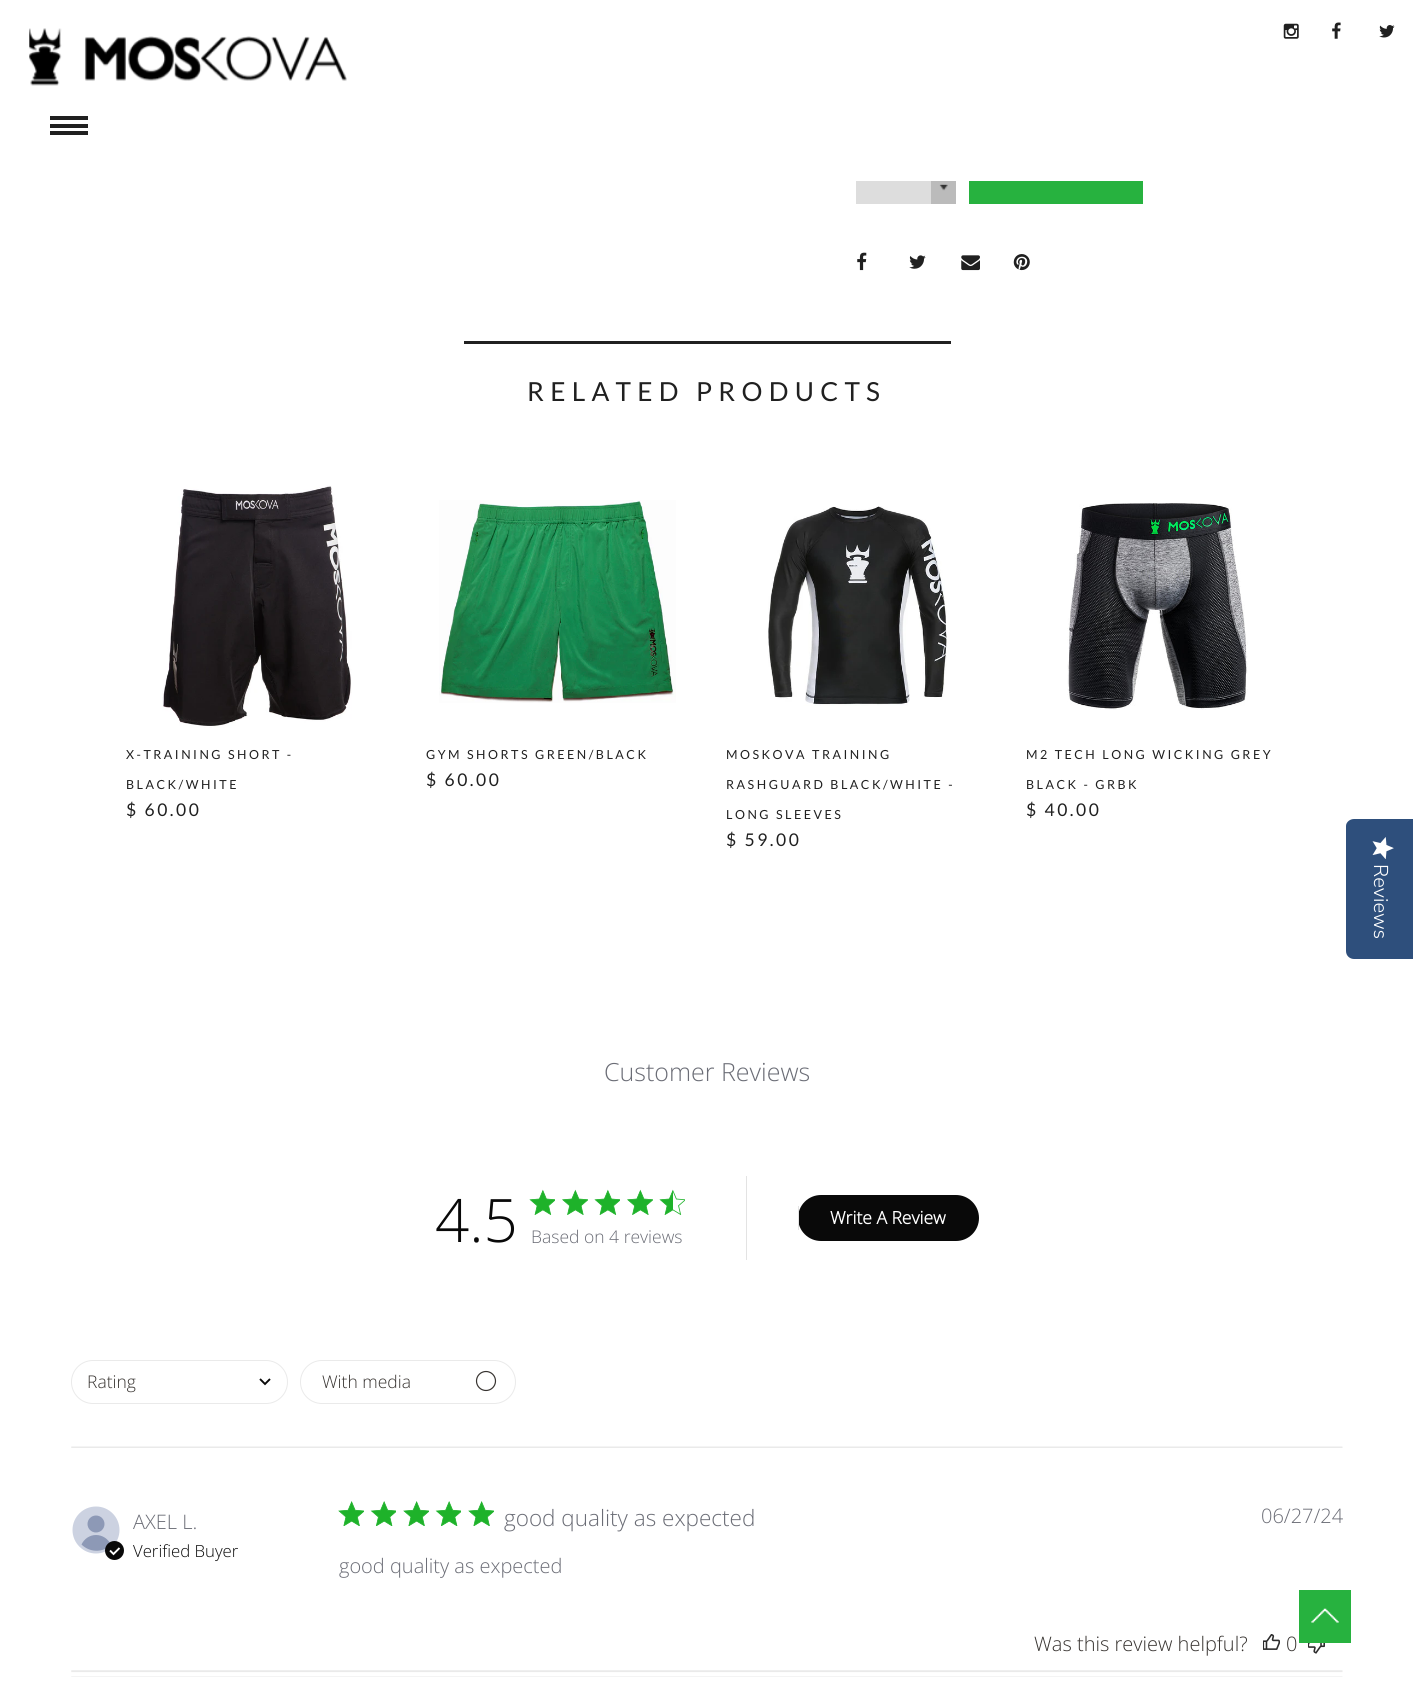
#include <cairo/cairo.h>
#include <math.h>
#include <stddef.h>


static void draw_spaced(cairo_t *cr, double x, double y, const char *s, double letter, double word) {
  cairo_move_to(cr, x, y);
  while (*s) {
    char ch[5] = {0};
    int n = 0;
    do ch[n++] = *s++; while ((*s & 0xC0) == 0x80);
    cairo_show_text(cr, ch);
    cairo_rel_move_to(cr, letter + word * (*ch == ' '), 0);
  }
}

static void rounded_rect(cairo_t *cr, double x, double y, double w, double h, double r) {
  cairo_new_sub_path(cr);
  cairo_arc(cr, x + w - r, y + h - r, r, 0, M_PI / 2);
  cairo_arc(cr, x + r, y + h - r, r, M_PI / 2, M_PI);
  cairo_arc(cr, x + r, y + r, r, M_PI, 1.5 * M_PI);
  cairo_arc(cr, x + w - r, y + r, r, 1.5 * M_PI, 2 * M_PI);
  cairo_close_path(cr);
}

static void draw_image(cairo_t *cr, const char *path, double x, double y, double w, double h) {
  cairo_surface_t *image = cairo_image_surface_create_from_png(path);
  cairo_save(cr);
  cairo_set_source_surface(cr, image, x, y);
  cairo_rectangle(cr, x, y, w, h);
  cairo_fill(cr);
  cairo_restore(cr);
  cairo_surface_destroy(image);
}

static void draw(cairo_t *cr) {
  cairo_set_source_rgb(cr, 1, 1, 1);
  cairo_paint(cr);
  draw_image(cr, "images/1.png", 29, 28, 318, 58);
  draw_image(cr, "images/2.png", 1283, 23, 16, 16);
  draw_image(cr, "images/3.png", 1332, 22, 9, 17);
  draw_image(cr, "images/4.png", 1379, 25, 16, 13);
  cairo_set_source_rgb(cr, 32 / 255.0, 32 / 255.0, 32 / 255.0);
  cairo_rectangle(cr, 50, 116, 38, 4);
  cairo_fill(cr);
  cairo_rectangle(cr, 50, 124, 38, 4);
  cairo_fill(cr);
  cairo_rectangle(cr, 50, 131, 38, 4);
  cairo_fill(cr);
  cairo_set_source_rgb(cr, 221 / 255.0, 221 / 255.0, 221 / 255.0);
  cairo_rectangle(cr, 856, 181, 75, 23);
  cairo_fill(cr);
  cairo_set_source_rgb(cr, 187 / 255.0, 187 / 255.0, 187 / 255.0);
  cairo_rectangle(cr, 931, 181, 25, 23);
  cairo_fill(cr);
  draw_image(cr, "images/5.png", 939, 184, 9, 7);
  cairo_set_source_rgb(cr, 39 / 255.0, 178 / 255.0, 63 / 255.0);
  cairo_rectangle(cr, 969, 181, 174, 23);
  cairo_fill(cr);
  draw_image(cr, "images/6.png", 857, 252, 10, 19);
  draw_image(cr, "images/7.png", 909, 255, 17, 14);
  draw_image(cr, "images/8.png", 961, 255, 19, 16);
  draw_image(cr, "images/9.png", 1013, 254, 17, 17);
  cairo_set_source_rgb(cr, 32 / 255.0, 32 / 255.0, 32 / 255.0);
  cairo_rectangle(cr, 464, 341, 487, 3);
  cairo_fill(cr);
  draw_image(cr, "images/10.png", 162, 485, 190, 243);
  draw_image(cr, "images/11.png", 439, 500, 237, 203);
  draw_image(cr, "images/12.png", 768, 506, 179, 200);
  draw_image(cr, "images/13.png", 1067, 503, 181, 207);
  draw_image(cr, "images/14.png", 529, 1189, 26, 26);
  draw_image(cr, "images/15.png", 562, 1189, 26, 26);
  draw_image(cr, "images/14.png", 594, 1189, 26, 26);
  draw_image(cr, "images/15.png", 627, 1189, 26, 26);
  draw_image(cr, "images/16.png", 659, 1189, 26, 26);
  cairo_set_source_rgb(cr, 227 / 255.0, 227 / 255.0, 227 / 255.0);
  cairo_rectangle(cr, 746, 1176, 1, 84);
  cairo_fill(cr);
  cairo_set_source_rgb(cr, 9 / 255.0, 9 / 255.0, 9 / 255.0);
  rounded_rect(cr, 798, 1195, 181, 46, 23);
  cairo_fill(cr);
  cairo_set_source_rgb(cr, 227 / 255.0, 227 / 255.0, 227 / 255.0);
  cairo_rectangle(cr, 798, 1206, 1, 24);
  cairo_fill(cr);
  rounded_rect(cr, 71.5, 1360.5, 216, 43, 21.5);
  cairo_set_source_rgb(cr, 234 / 255.0, 234 / 255.0, 234 / 255.0);
  cairo_set_line_width(cr, 1);
  cairo_stroke(cr);
  cairo_new_path(cr);
  cairo_move_to(cr, 260, 1379);
  cairo_line_to(cr, 265, 1384);
  cairo_line_to(cr, 270, 1379);
  cairo_set_source_rgb(cr, 9 / 255.0, 9 / 255.0, 9 / 255.0);
  cairo_set_line_width(cr, 1.9);
  cairo_stroke(cr);
  rounded_rect(cr, 300.5, 1360.5, 215, 43, 21.5);
  cairo_set_source_rgb(cr, 234 / 255.0, 234 / 255.0, 234 / 255.0);
  cairo_set_line_width(cr, 1);
  cairo_stroke(cr);
  cairo_arc(cr, 486, 1381, 9.5, 0, 2 * M_PI);
  cairo_set_source_rgb(cr, 55 / 255.0, 51 / 255.0, 48 / 255.0);
  cairo_set_line_width(cr, 1.2);
  cairo_stroke(cr);
  draw_image(cr, "images/17.png", 71, 1446, 1272, 2);
  cairo_set_source_rgb(cr, 204 / 255.0, 210 / 255.0, 225 / 255.0);
  cairo_arc(cr, 96, 1530, 23.5, 0, 2 * M_PI);
  cairo_fill(cr);
  cairo_set_source_rgb(cr, 141 / 255.0, 153 / 255.0, 182 / 255.0);
  cairo_arc(cr, 96, 1524, 8.5, 0, 2 * M_PI);
  cairo_fill(cr);
  cairo_new_path(cr);
  cairo_move_to(cr, 96, 1535);
  cairo_curve_to(cr, 102.5, 1535, 108.5, 1539, 111, 1545);
  cairo_curve_to(cr, 102.5, 1553, 89.5, 1552.5, 81.5, 1544.5);
  cairo_curve_to(cr, 84, 1539, 89.5, 1535, 96, 1535);
  cairo_close_path(cr);
  cairo_fill(cr);
  cairo_set_source_rgb(cr, 9 / 255.0, 9 / 255.0, 9 / 255.0);
  cairo_arc(cr, 114.5, 1550.5, 9.5, 0, 2 * M_PI);
  cairo_fill(cr);
  cairo_new_path(cr);
  cairo_move_to(cr, 110, 1550.5);
  cairo_line_to(cr, 113.5, 1554);
  cairo_line_to(cr, 119.5, 1548);
  cairo_set_source_rgb(cr, 1, 1, 1);
  cairo_set_line_width(cr, 1.9);
  cairo_stroke(cr);
  draw_image(cr, "images/18.png", 338, 1501, 26, 25);
  draw_image(cr, "images/19.png", 370, 1501, 26, 25);
  draw_image(cr, "images/18.png", 403, 1501, 26, 25);
  draw_image(cr, "images/19.png", 435, 1501, 26, 25);
  draw_image(cr, "images/18.png", 468, 1501, 26, 25);
  draw_image(cr, "images/20.png", 1263, 1634, 17, 16);
  draw_image(cr, "images/21.png", 1308, 1643, 17, 11);
  draw_image(cr, "images/22.png", 71, 1670, 1272, 7);
  cairo_set_source_rgb(cr, 46 / 255.0, 79 / 255.0, 124 / 255.0);
  cairo_new_path(cr);
  cairo_move_to(cr, 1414, 819);
  cairo_line_to(cr, 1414, 959);
  cairo_line_to(cr, 1354, 959);
  cairo_curve_to(cr, 1350, 959, 1346, 956, 1346, 951);
  cairo_line_to(cr, 1346, 826);
  cairo_curve_to(cr, 1346, 822, 1350, 819, 1354, 819);
  cairo_close_path(cr);
  cairo_fill(cr);
  draw_image(cr, "images/23.png", 1372, 837, 22, 23);
  cairo_set_source_rgb(cr, 39 / 255.0, 178 / 255.0, 63 / 255.0);
  cairo_rectangle(cr, 1299, 1590, 52, 53);
  cairo_fill(cr);
  draw_image(cr, "images/24.png", 1311, 1608, 28, 15);
  cairo_select_font_face(cr, "Lato", CAIRO_FONT_SLANT_NORMAL, CAIRO_FONT_WEIGHT_NORMAL);
  cairo_set_font_size(cr, 26.25);
  cairo_set_source_rgb(cr, 32 / 255.0, 32 / 255.0, 32 / 255.0);
  draw_spaced(cr, 527, 401, "RELATED PRODUCTS", 6.25, 0);
  cairo_set_font_size(cr, 12.5);
  draw_spaced(cr, 126, 759, "X-TRAINING SHORT -", 2.5, 0);
  draw_spaced(cr, 126, 789, "BLACK/WHITE", 2.5, 0);
  cairo_set_font_size(cr, 17.5);
  draw_spaced(cr, 126, 816, "$ 60.00", 2.5, 0);
  cairo_set_font_size(cr, 12.5);
  draw_spaced(cr, 426, 759, "GYM SHORTS GREEN/BLACK", 2.5, 0);
  cairo_set_font_size(cr, 17.5);
  draw_spaced(cr, 426, 786, "$ 60.00", 2.5, 0);
  cairo_set_font_size(cr, 12.5);
  draw_spaced(cr, 726, 759, "MOSKOVA TRAINING", 2.5, 0);
  draw_spaced(cr, 726, 789, "RASHGUARD BLACK/WHITE -", 2.5, 0);
  draw_spaced(cr, 726, 819, "LONG SLEEVES", 2.5, 0);
  cairo_set_font_size(cr, 17.5);
  draw_spaced(cr, 726, 846, "$ 59.00", 2.5, 0);
  cairo_set_font_size(cr, 12.5);
  draw_spaced(cr, 1026, 759, "M2 TECH LONG WICKING GREY", 2.5, 0);
  draw_spaced(cr, 1026, 789, "BLACK - GRBK", 2.5, 0);
  cairo_set_font_size(cr, 17.5);
  draw_spaced(cr, 1026, 816, "$ 40.00", 2.5, 0);
  cairo_select_font_face(cr, "Open Sans Light", CAIRO_FONT_SLANT_NORMAL, CAIRO_FONT_WEIGHT_NORMAL);
  cairo_set_font_size(cr, 25);
  cairo_set_source_rgb(cr, 107 / 255.0, 109 / 255.0, 118 / 255.0);
  cairo_move_to(cr, 604, 1081);
  cairo_show_text(cr, "Customer Reviews");
  cairo_set_font_size(cr, 60);
  cairo_set_source_rgb(cr, 9 / 255.0, 9 / 255.0, 9 / 255.0);
  cairo_move_to(cr, 435, 1242);
  cairo_show_text(cr, "4.5");
  cairo_set_font_size(cr, 17.5);
  cairo_set_source_rgb(cr, 107 / 255.0, 109 / 255.0, 118 / 255.0);
  cairo_move_to(cr, 531, 1243);
  cairo_show_text(cr, "Based on 4 reviews");
  cairo_select_font_face(cr, "Open Sans", CAIRO_FONT_SLANT_NORMAL, CAIRO_FONT_WEIGHT_BOLD);
  cairo_set_source_rgb(cr, 1, 1, 1);
  cairo_move_to(cr, 830, 1224);
  cairo_show_text(cr, "Write A Review");
  cairo_select_font_face(cr, "Open Sans Light", CAIRO_FONT_SLANT_NORMAL, CAIRO_FONT_WEIGHT_NORMAL);
  cairo_set_source_rgb(cr, 55 / 255.0, 51 / 255.0, 48 / 255.0);
  cairo_move_to(cr, 87, 1388);
  cairo_show_text(cr, "Rating");
  cairo_move_to(cr, 322, 1388);
  cairo_show_text(cr, "With media");
  cairo_set_font_size(cr, 20);
  cairo_set_source_rgb(cr, 107 / 255.0, 109 / 255.0, 118 / 255.0);
  cairo_move_to(cr, 133, 1529);
  cairo_show_text(cr, "AXEL L.");
  cairo_set_font_size(cr, 16.75);
  cairo_set_source_rgb(cr, 9 / 255.0, 9 / 255.0, 9 / 255.0);
  cairo_move_to(cr, 133, 1557);
  cairo_show_text(cr, "Verified Buyer");
  cairo_set_font_size(cr, 22.5);
  cairo_set_source_rgb(cr, 107 / 255.0, 109 / 255.0, 118 / 255.0);
  cairo_move_to(cr, 504, 1526);
  cairo_show_text(cr, "good quality as expected");
  cairo_set_font_size(cr, 20);
  cairo_move_to(cr, 339, 1573);
  cairo_show_text(cr, "good quality as expected");
  cairo_move_to(cr, 1261, 1523);
  cairo_show_text(cr, "06/27/24");
  cairo_set_source_rgb(cr, 55 / 255.0, 51 / 255.0, 48 / 255.0);
  cairo_move_to(cr, 1034, 1651);
  cairo_show_text(cr, "Was this review helpful?");
  cairo_move_to(cr, 1286, 1651);
  cairo_show_text(cr, "0");
  cairo_select_font_face(cr, "Nunito Sans Light", CAIRO_FONT_SLANT_NORMAL, CAIRO_FONT_WEIGHT_NORMAL);
  cairo_set_source_rgb(cr, 1, 1, 1);
  cairo_save(cr);
  cairo_translate(cr, 1374, 864);
  cairo_rotate(cr, 90 * M_PI / 180);
  cairo_move_to(cr, 0, 0);
  cairo_show_text(cr, "Reviews");
  cairo_restore(cr);
}

int main(void) {
  cairo_surface_t *surface = cairo_image_surface_create(CAIRO_FORMAT_RGB24, 1413, 1705);
  cairo_t *cr = cairo_create(surface);
  cairo_font_options_t *options = cairo_font_options_create();
  cairo_font_options_set_hint_metrics(options, CAIRO_HINT_METRICS_OFF);
  cairo_font_options_set_hint_style(options, CAIRO_HINT_STYLE_NONE);
  cairo_set_font_options(cr, options);
  cairo_set_miter_limit(cr, 4);
  draw(cr);
  cairo_surface_write_to_png(surface, "out.png");
  cairo_font_options_destroy(options);
  cairo_destroy(cr);
  cairo_surface_destroy(surface);
  return 0;
}
